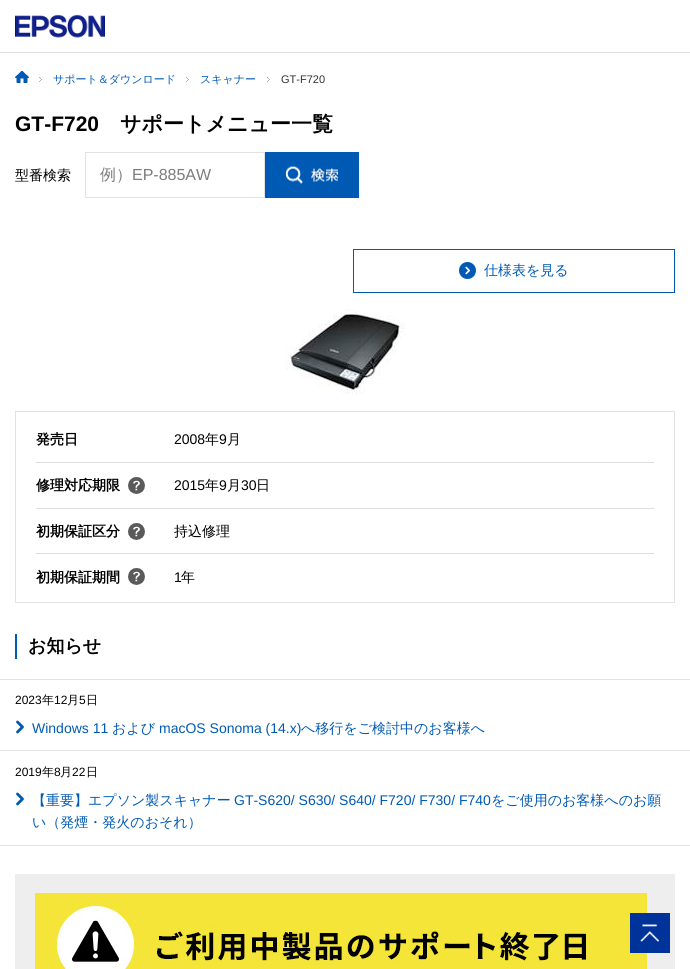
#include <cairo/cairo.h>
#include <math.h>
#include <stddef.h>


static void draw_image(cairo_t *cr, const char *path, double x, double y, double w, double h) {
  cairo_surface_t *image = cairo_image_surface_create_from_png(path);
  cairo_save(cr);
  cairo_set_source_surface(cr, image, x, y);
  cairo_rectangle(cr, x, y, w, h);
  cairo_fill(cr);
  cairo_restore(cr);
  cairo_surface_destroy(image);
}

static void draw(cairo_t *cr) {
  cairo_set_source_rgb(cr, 1, 1, 1);
  cairo_paint(cr);
  cairo_set_source_rgb(cr, 225 / 255.0, 225 / 255.0, 225 / 255.0);
  cairo_rectangle(cr, 0, 52, 690, 1);
  cairo_fill(cr);
  draw_image(cr, "images/1.png", 15, 14, 90, 24);
  draw_image(cr, "images/2.png", 39, 77, 3, 5);
  draw_image(cr, "images/3.png", 15, 71, 14, 12);
  draw_image(cr, "images/2.png", 186, 77, 3, 5);
  draw_image(cr, "images/2.png", 267, 77, 3, 5);
  cairo_rectangle(cr, 85.5, 152.5, 179, 45);
  cairo_set_source_rgb(cr, 226 / 255.0, 226 / 255.0, 226 / 255.0);
  cairo_set_line_width(cr, 1);
  cairo_stroke(cr);
  draw_image(cr, "images/4.png", 265, 152, 94, 46);
  cairo_rectangle(cr, 353.5, 249.5, 321, 43);
  cairo_set_source_rgb(cr, 0, 90 / 255.0, 180 / 255.0);
  cairo_stroke(cr);
  draw_image(cr, "images/5.png", 459, 262, 17, 17);
  draw_image(cr, "images/6.png", 285, 309, 120, 86);
  cairo_rectangle(cr, 15.5, 411.5, 659, 191);
  cairo_set_source_rgb(cr, 226 / 255.0, 226 / 255.0, 226 / 255.0);
  cairo_stroke(cr);
  cairo_set_source_rgb(cr, 221 / 255.0, 221 / 255.0, 221 / 255.0);
  cairo_rectangle(cr, 36, 462, 618, 1);
  cairo_fill(cr);
  cairo_rectangle(cr, 36, 508, 618, 1);
  cairo_fill(cr);
  draw_image(cr, "images/7.png", 128, 477, 17, 17);
  cairo_rectangle(cr, 36, 553, 618, 1);
  cairo_fill(cr);
  draw_image(cr, "images/7.png", 128, 523, 17, 17);
  draw_image(cr, "images/7.png", 128, 568, 17, 17);
  cairo_set_source_rgb(cr, 0, 90 / 255.0, 180 / 255.0);
  cairo_rectangle(cr, 15, 634, 2, 25);
  cairo_fill(cr);
  cairo_set_source_rgb(cr, 226 / 255.0, 226 / 255.0, 226 / 255.0);
  cairo_rectangle(cr, 0, 679, 690, 1);
  cairo_fill(cr);
  cairo_rectangle(cr, 0, 750, 690, 1);
  cairo_fill(cr);
  cairo_new_path(cr);
  cairo_move_to(cr, 17.5, 722);
  cairo_line_to(cr, 22.5, 727);
  cairo_line_to(cr, 17.5, 732);
  cairo_set_source_rgb(cr, 0, 90 / 255.0, 180 / 255.0);
  cairo_set_line_width(cr, 2.8);
  cairo_set_line_cap(cr, CAIRO_LINE_CAP_ROUND);
  cairo_set_line_join(cr, CAIRO_LINE_JOIN_ROUND);
  cairo_stroke(cr);
  cairo_set_source_rgb(cr, 226 / 255.0, 226 / 255.0, 226 / 255.0);
  cairo_rectangle(cr, 0, 845, 690, 1);
  cairo_fill(cr);
  cairo_new_path(cr);
  cairo_move_to(cr, 17.5, 794);
  cairo_line_to(cr, 22.5, 799);
  cairo_line_to(cr, 17.5, 804);
  cairo_set_source_rgb(cr, 0, 90 / 255.0, 180 / 255.0);
  cairo_stroke(cr);
  cairo_set_source_rgb(cr, 238 / 255.0, 238 / 255.0, 238 / 255.0);
  cairo_rectangle(cr, 15, 874, 660, 95);
  cairo_fill(cr);
  draw_image(cr, "images/8.png", 35, 893, 612, 76);
  draw_image(cr, "images/9.png", 630, 913, 40, 40);
  cairo_select_font_face(cr, "WenQuanYi Zen Hei Medium", CAIRO_FONT_SLANT_NORMAL, CAIRO_FONT_WEIGHT_NORMAL);
  cairo_set_font_size(cr, 11);
  cairo_set_source_rgb(cr, 0, 90 / 255.0, 180 / 255.0);
  cairo_move_to(cr, 53, 83);
  cairo_show_text(cr, "サポート＆ダウンロード");
  cairo_move_to(cr, 200, 83);
  cairo_show_text(cr, "スキャナー");
  cairo_select_font_face(cr, "Liberation Sans", CAIRO_FONT_SLANT_NORMAL, CAIRO_FONT_WEIGHT_NORMAL);
  cairo_set_source_rgb(cr, 51 / 255.0, 51 / 255.0, 51 / 255.0);
  cairo_move_to(cr, 281, 83);
  cairo_show_text(cr, "GT-F720");
  cairo_select_font_face(cr, "Liberation Sans", CAIRO_FONT_SLANT_NORMAL, CAIRO_FONT_WEIGHT_BOLD);
  cairo_set_font_size(cr, 21);
  cairo_set_source_rgb(cr, 0, 0, 0);
  cairo_move_to(cr, 15, 131);
  cairo_show_text(cr, "GT-F720");
  cairo_select_font_face(cr, "WenQuanYi Zen Hei", CAIRO_FONT_SLANT_NORMAL, CAIRO_FONT_WEIGHT_BOLD);
  cairo_move_to(cr, 120, 131);
  cairo_show_text(cr, "サポートメニュー一覧");
  cairo_select_font_face(cr, "WenQuanYi Zen Hei Medium", CAIRO_FONT_SLANT_NORMAL, CAIRO_FONT_WEIGHT_NORMAL);
  cairo_set_font_size(cr, 14);
  cairo_move_to(cr, 15, 180);
  cairo_show_text(cr, "型番検索");
  cairo_set_font_size(cr, 16);
  cairo_set_source_rgb(cr, 124 / 255.0, 124 / 255.0, 124 / 255.0);
  cairo_move_to(cr, 100, 180);
  cairo_show_text(cr, "例）");
  cairo_select_font_face(cr, "Liberation Sans", CAIRO_FONT_SLANT_NORMAL, CAIRO_FONT_WEIGHT_NORMAL);
  cairo_move_to(cr, 132, 180);
  cairo_show_text(cr, "EP-885AW");
  cairo_select_font_face(cr, "WenQuanYi Zen Hei Medium", CAIRO_FONT_SLANT_NORMAL, CAIRO_FONT_WEIGHT_NORMAL);
  cairo_set_font_size(cr, 14);
  cairo_set_source_rgb(cr, 0, 90 / 255.0, 180 / 255.0);
  cairo_move_to(cr, 484, 275);
  cairo_show_text(cr, "仕様表を見る");
  cairo_select_font_face(cr, "WenQuanYi Zen Hei", CAIRO_FONT_SLANT_NORMAL, CAIRO_FONT_WEIGHT_BOLD);
  cairo_set_source_rgb(cr, 0, 0, 0);
  cairo_move_to(cr, 36, 444);
  cairo_show_text(cr, "発売日");
  cairo_select_font_face(cr, "Liberation Sans", CAIRO_FONT_SLANT_NORMAL, CAIRO_FONT_WEIGHT_NORMAL);
  cairo_move_to(cr, 174, 444);
  cairo_show_text(cr, "2008");
  cairo_select_font_face(cr, "WenQuanYi Zen Hei Medium", CAIRO_FONT_SLANT_NORMAL, CAIRO_FONT_WEIGHT_NORMAL);
  cairo_move_to(cr, 205, 444);
  cairo_show_text(cr, "年");
  cairo_select_font_face(cr, "Liberation Sans", CAIRO_FONT_SLANT_NORMAL, CAIRO_FONT_WEIGHT_NORMAL);
  cairo_move_to(cr, 219, 444);
  cairo_show_text(cr, "9");
  cairo_select_font_face(cr, "WenQuanYi Zen Hei Medium", CAIRO_FONT_SLANT_NORMAL, CAIRO_FONT_WEIGHT_NORMAL);
  cairo_move_to(cr, 227, 444);
  cairo_show_text(cr, "月");
  cairo_select_font_face(cr, "WenQuanYi Zen Hei", CAIRO_FONT_SLANT_NORMAL, CAIRO_FONT_WEIGHT_BOLD);
  cairo_move_to(cr, 36, 490);
  cairo_show_text(cr, "修理対応期限");
  cairo_select_font_face(cr, "Liberation Sans", CAIRO_FONT_SLANT_NORMAL, CAIRO_FONT_WEIGHT_NORMAL);
  cairo_move_to(cr, 174, 490);
  cairo_show_text(cr, "2015");
  cairo_select_font_face(cr, "WenQuanYi Zen Hei Medium", CAIRO_FONT_SLANT_NORMAL, CAIRO_FONT_WEIGHT_NORMAL);
  cairo_move_to(cr, 205, 490);
  cairo_show_text(cr, "年");
  cairo_select_font_face(cr, "Liberation Sans", CAIRO_FONT_SLANT_NORMAL, CAIRO_FONT_WEIGHT_NORMAL);
  cairo_move_to(cr, 219, 490);
  cairo_show_text(cr, "9");
  cairo_select_font_face(cr, "WenQuanYi Zen Hei Medium", CAIRO_FONT_SLANT_NORMAL, CAIRO_FONT_WEIGHT_NORMAL);
  cairo_move_to(cr, 227, 490);
  cairo_show_text(cr, "月");
  cairo_select_font_face(cr, "Liberation Sans", CAIRO_FONT_SLANT_NORMAL, CAIRO_FONT_WEIGHT_NORMAL);
  cairo_move_to(cr, 241, 490);
  cairo_show_text(cr, "30");
  cairo_select_font_face(cr, "WenQuanYi Zen Hei Medium", CAIRO_FONT_SLANT_NORMAL, CAIRO_FONT_WEIGHT_NORMAL);
  cairo_move_to(cr, 256, 490);
  cairo_show_text(cr, "日");
  cairo_select_font_face(cr, "WenQuanYi Zen Hei", CAIRO_FONT_SLANT_NORMAL, CAIRO_FONT_WEIGHT_BOLD);
  cairo_move_to(cr, 36, 536);
  cairo_show_text(cr, "初期保証区分");
  cairo_select_font_face(cr, "WenQuanYi Zen Hei Medium", CAIRO_FONT_SLANT_NORMAL, CAIRO_FONT_WEIGHT_NORMAL);
  cairo_move_to(cr, 174, 536);
  cairo_show_text(cr, "持込修理");
  cairo_select_font_face(cr, "WenQuanYi Zen Hei", CAIRO_FONT_SLANT_NORMAL, CAIRO_FONT_WEIGHT_BOLD);
  cairo_move_to(cr, 36, 582);
  cairo_show_text(cr, "初期保証期間");
  cairo_select_font_face(cr, "Liberation Sans", CAIRO_FONT_SLANT_NORMAL, CAIRO_FONT_WEIGHT_NORMAL);
  cairo_move_to(cr, 174, 582);
  cairo_show_text(cr, "1");
  cairo_select_font_face(cr, "WenQuanYi Zen Hei Medium", CAIRO_FONT_SLANT_NORMAL, CAIRO_FONT_WEIGHT_NORMAL);
  cairo_move_to(cr, 181, 582);
  cairo_show_text(cr, "年");
  cairo_select_font_face(cr, "WenQuanYi Zen Hei", CAIRO_FONT_SLANT_NORMAL, CAIRO_FONT_WEIGHT_BOLD);
  cairo_set_font_size(cr, 18);
  cairo_move_to(cr, 28, 652);
  cairo_show_text(cr, "お知らせ");
  cairo_select_font_face(cr, "Liberation Sans", CAIRO_FONT_SLANT_NORMAL, CAIRO_FONT_WEIGHT_NORMAL);
  cairo_set_font_size(cr, 12);
  cairo_move_to(cr, 15, 704);
  cairo_show_text(cr, "2023");
  cairo_select_font_face(cr, "WenQuanYi Zen Hei Medium", CAIRO_FONT_SLANT_NORMAL, CAIRO_FONT_WEIGHT_NORMAL);
  cairo_move_to(cr, 42, 704);
  cairo_show_text(cr, "年");
  cairo_select_font_face(cr, "Liberation Sans", CAIRO_FONT_SLANT_NORMAL, CAIRO_FONT_WEIGHT_NORMAL);
  cairo_move_to(cr, 54, 704);
  cairo_show_text(cr, "12");
  cairo_select_font_face(cr, "WenQuanYi Zen Hei Medium", CAIRO_FONT_SLANT_NORMAL, CAIRO_FONT_WEIGHT_NORMAL);
  cairo_move_to(cr, 67, 704);
  cairo_show_text(cr, "月");
  cairo_select_font_face(cr, "Liberation Sans", CAIRO_FONT_SLANT_NORMAL, CAIRO_FONT_WEIGHT_NORMAL);
  cairo_move_to(cr, 79, 704);
  cairo_show_text(cr, "5");
  cairo_select_font_face(cr, "WenQuanYi Zen Hei Medium", CAIRO_FONT_SLANT_NORMAL, CAIRO_FONT_WEIGHT_NORMAL);
  cairo_move_to(cr, 86, 704);
  cairo_show_text(cr, "日");
  cairo_select_font_face(cr, "Liberation Sans", CAIRO_FONT_SLANT_NORMAL, CAIRO_FONT_WEIGHT_NORMAL);
  cairo_set_font_size(cr, 14);
  cairo_set_source_rgb(cr, 0, 90 / 255.0, 180 / 255.0);
  cairo_move_to(cr, 32, 733);
  cairo_show_text(cr, "Windows 11");
  cairo_select_font_face(cr, "WenQuanYi Zen Hei Medium", CAIRO_FONT_SLANT_NORMAL, CAIRO_FONT_WEIGHT_NORMAL);
  cairo_move_to(cr, 112, 733);
  cairo_show_text(cr, "および");
  cairo_select_font_face(cr, "Liberation Sans", CAIRO_FONT_SLANT_NORMAL, CAIRO_FONT_WEIGHT_NORMAL);
  cairo_move_to(cr, 159, 733);
  cairo_show_text(cr, "macOS Sonoma (14.x)");
  cairo_select_font_face(cr, "WenQuanYi Zen Hei Medium", CAIRO_FONT_SLANT_NORMAL, CAIRO_FONT_WEIGHT_NORMAL);
  cairo_move_to(cr, 301, 733);
  cairo_show_text(cr, "へ移行をご検討中のお客様へ");
  cairo_select_font_face(cr, "Liberation Sans", CAIRO_FONT_SLANT_NORMAL, CAIRO_FONT_WEIGHT_NORMAL);
  cairo_set_font_size(cr, 12);
  cairo_set_source_rgb(cr, 0, 0, 0);
  cairo_move_to(cr, 15, 776);
  cairo_show_text(cr, "2019");
  cairo_select_font_face(cr, "WenQuanYi Zen Hei Medium", CAIRO_FONT_SLANT_NORMAL, CAIRO_FONT_WEIGHT_NORMAL);
  cairo_move_to(cr, 42, 776);
  cairo_show_text(cr, "年");
  cairo_select_font_face(cr, "Liberation Sans", CAIRO_FONT_SLANT_NORMAL, CAIRO_FONT_WEIGHT_NORMAL);
  cairo_move_to(cr, 54, 776);
  cairo_show_text(cr, "8");
  cairo_select_font_face(cr, "WenQuanYi Zen Hei Medium", CAIRO_FONT_SLANT_NORMAL, CAIRO_FONT_WEIGHT_NORMAL);
  cairo_move_to(cr, 60, 776);
  cairo_show_text(cr, "月");
  cairo_select_font_face(cr, "Liberation Sans", CAIRO_FONT_SLANT_NORMAL, CAIRO_FONT_WEIGHT_NORMAL);
  cairo_move_to(cr, 72, 776);
  cairo_show_text(cr, "22");
  cairo_select_font_face(cr, "WenQuanYi Zen Hei Medium", CAIRO_FONT_SLANT_NORMAL, CAIRO_FONT_WEIGHT_NORMAL);
  cairo_move_to(cr, 86, 776);
  cairo_show_text(cr, "日");
  cairo_set_font_size(cr, 14);
  cairo_set_source_rgb(cr, 0, 90 / 255.0, 180 / 255.0);
  cairo_move_to(cr, 32, 805);
  cairo_show_text(cr, "【重要】エプソン製スキャナー");
  cairo_select_font_face(cr, "Liberation Sans", CAIRO_FONT_SLANT_NORMAL, CAIRO_FONT_WEIGHT_NORMAL);
  cairo_move_to(cr, 234, 805);
  cairo_show_text(cr, "GT-S620/ S630/ S640/ F720/ F730/ F740");
  cairo_select_font_face(cr, "WenQuanYi Zen Hei Medium", CAIRO_FONT_SLANT_NORMAL, CAIRO_FONT_WEIGHT_NORMAL);
  cairo_move_to(cr, 491, 805);
  cairo_show_text(cr, "をご使用のお客様へのお願");
  cairo_move_to(cr, 32, 827);
  cairo_show_text(cr, "い（発煙・発火のおそれ）");
}

int main(void) {
  cairo_surface_t *surface = cairo_image_surface_create(CAIRO_FORMAT_RGB24, 690, 969);
  cairo_t *cr = cairo_create(surface);
  cairo_font_options_t *options = cairo_font_options_create();
  cairo_font_options_set_hint_metrics(options, CAIRO_HINT_METRICS_OFF);
  cairo_font_options_set_hint_style(options, CAIRO_HINT_STYLE_NONE);
  cairo_set_font_options(cr, options);
  cairo_set_miter_limit(cr, 4);
  draw(cr);
  cairo_surface_write_to_png(surface, "out.png");
  cairo_font_options_destroy(options);
  cairo_destroy(cr);
  cairo_surface_destroy(surface);
  return 0;
}
